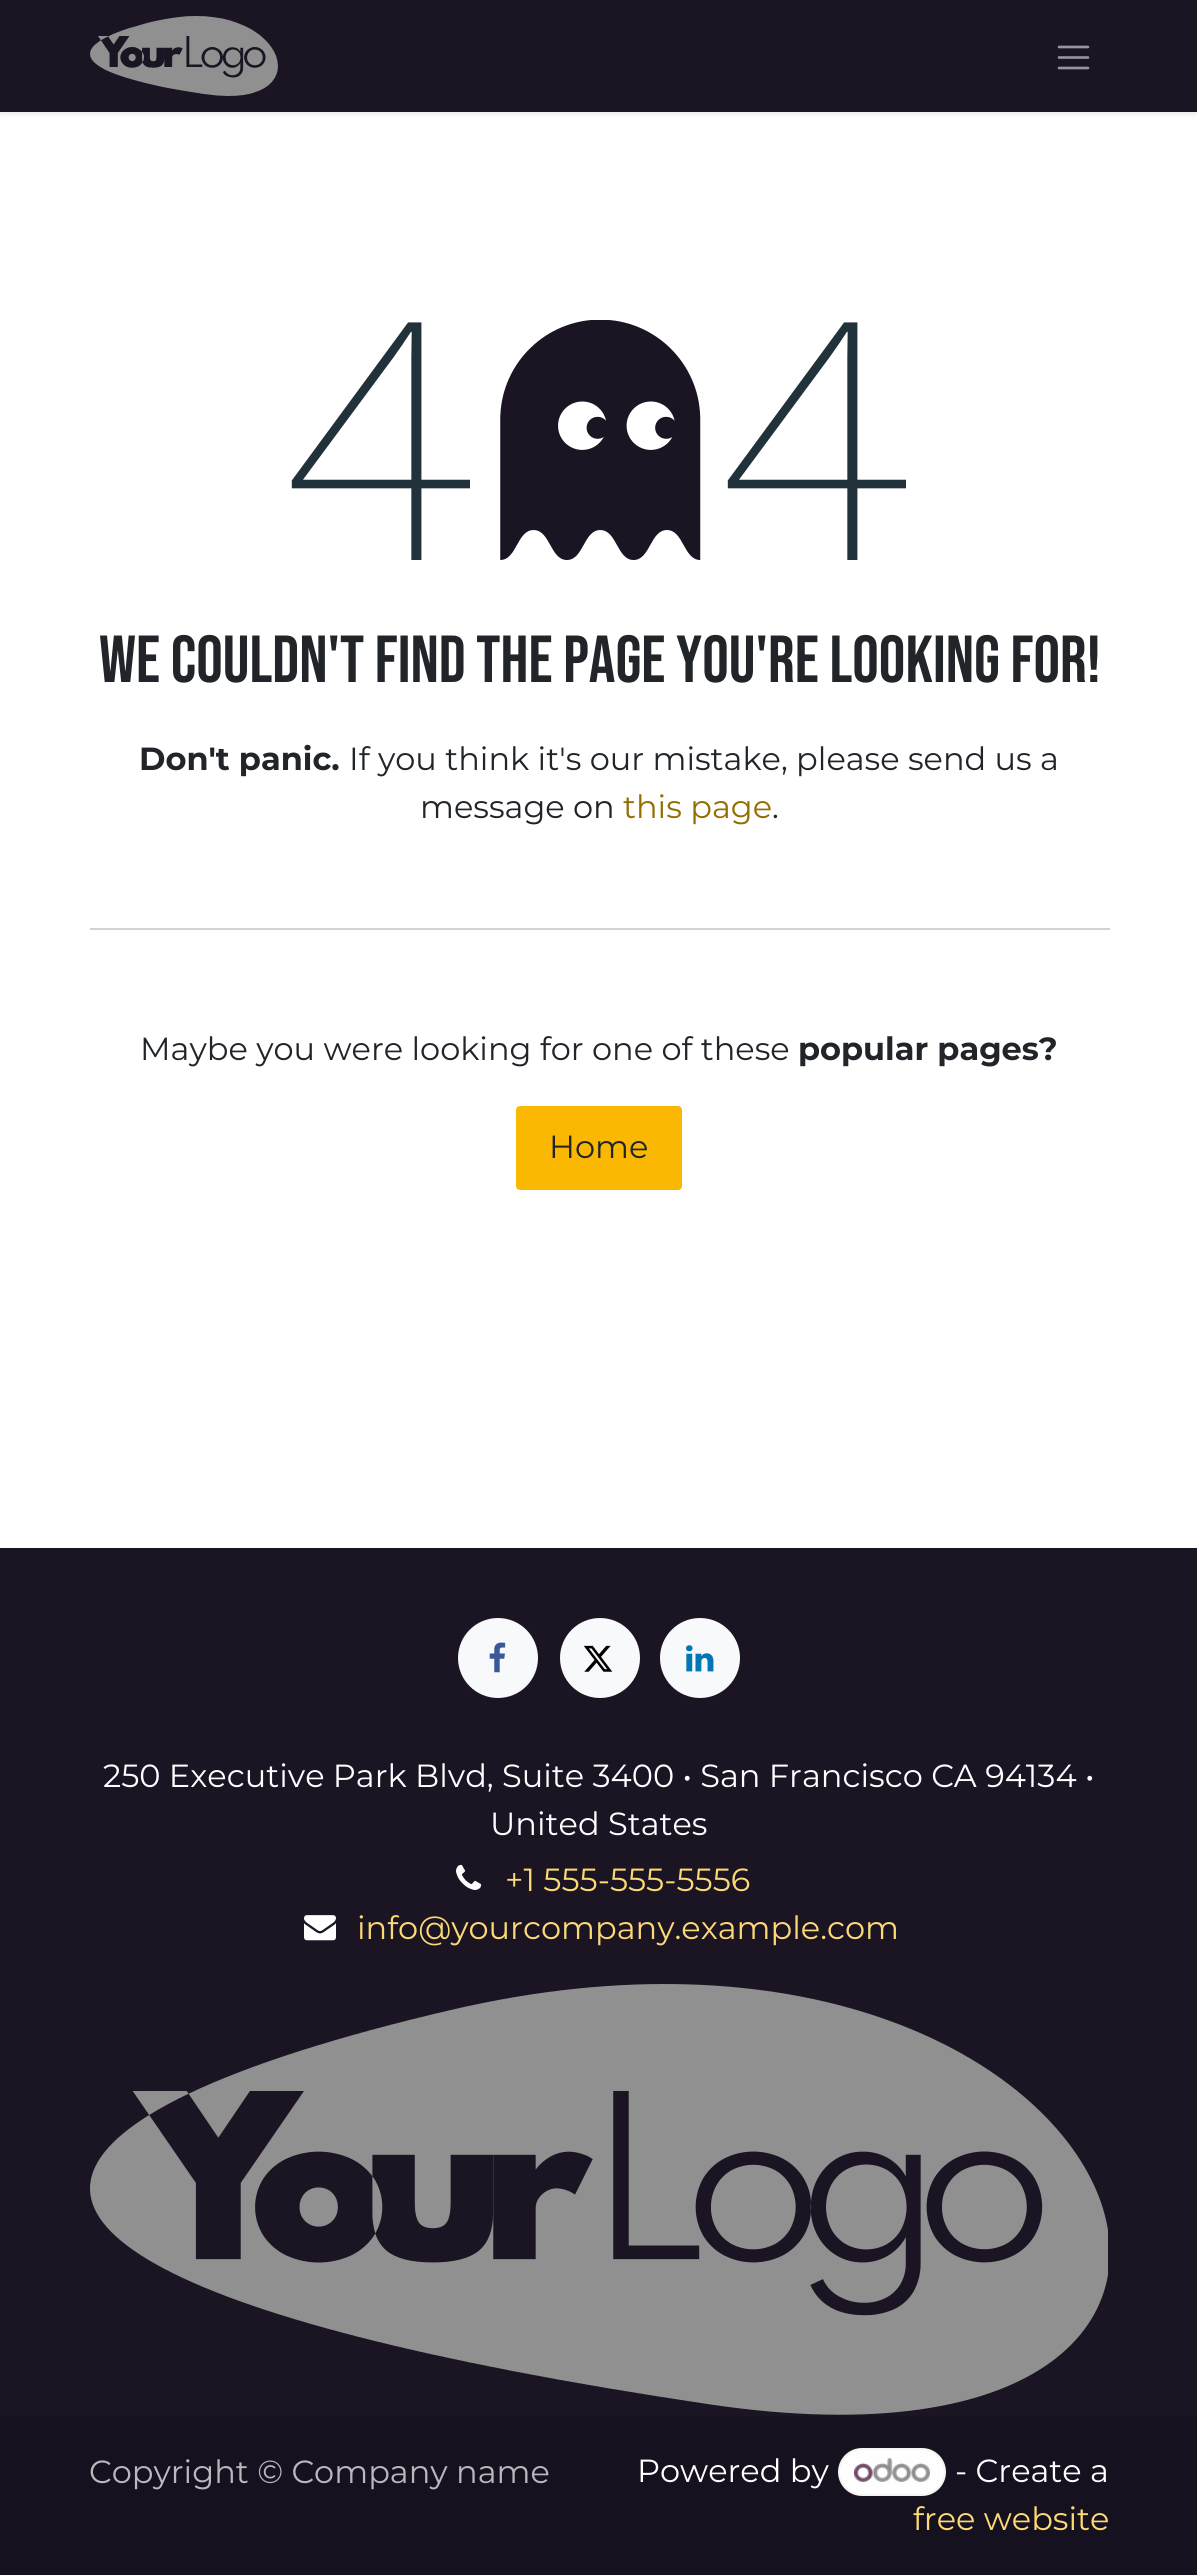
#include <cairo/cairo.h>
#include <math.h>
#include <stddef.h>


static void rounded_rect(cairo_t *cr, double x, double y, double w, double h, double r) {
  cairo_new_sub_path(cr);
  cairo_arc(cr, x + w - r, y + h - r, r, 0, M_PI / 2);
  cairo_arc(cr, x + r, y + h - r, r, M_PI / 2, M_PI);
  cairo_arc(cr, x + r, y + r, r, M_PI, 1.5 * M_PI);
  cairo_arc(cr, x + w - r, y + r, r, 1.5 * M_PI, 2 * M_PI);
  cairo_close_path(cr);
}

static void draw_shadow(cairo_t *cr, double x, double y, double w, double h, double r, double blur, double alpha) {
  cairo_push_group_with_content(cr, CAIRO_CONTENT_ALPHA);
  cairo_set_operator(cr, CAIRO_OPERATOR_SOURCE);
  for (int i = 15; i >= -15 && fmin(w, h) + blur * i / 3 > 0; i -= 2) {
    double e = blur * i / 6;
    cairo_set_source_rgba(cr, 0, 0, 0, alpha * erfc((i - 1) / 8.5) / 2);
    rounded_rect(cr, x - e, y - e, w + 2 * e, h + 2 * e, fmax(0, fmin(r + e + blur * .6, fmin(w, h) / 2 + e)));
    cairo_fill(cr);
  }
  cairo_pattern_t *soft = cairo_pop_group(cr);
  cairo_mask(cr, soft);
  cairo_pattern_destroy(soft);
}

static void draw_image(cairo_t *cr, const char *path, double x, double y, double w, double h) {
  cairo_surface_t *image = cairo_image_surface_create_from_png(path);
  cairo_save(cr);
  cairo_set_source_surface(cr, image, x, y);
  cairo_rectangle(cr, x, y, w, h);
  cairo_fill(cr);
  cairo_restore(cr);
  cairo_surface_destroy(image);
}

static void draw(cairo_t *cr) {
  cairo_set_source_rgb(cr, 1, 1, 1);
  cairo_paint(cr);
  cairo_set_source_rgb(cr, 0, 0, 0);
  draw_shadow(cr, 0, 2, 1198, 112, 0, 3, 0.1);
  cairo_set_source_rgb(cr, 26 / 255.0, 20 / 255.0, 35 / 255.0);
  cairo_rectangle(cr, 0, 0, 1197, 112);
  cairo_fill(cr);
  draw_image(cr, "images/1.png", 90, 16, 188, 80);
  cairo_new_path(cr);
  cairo_move_to(cr, 1059, 47);
  cairo_line_to(cr, 1088, 47);
  cairo_move_to(cr, 1059, 57.5);
  cairo_line_to(cr, 1088, 57.5);
  cairo_move_to(cr, 1059, 68);
  cairo_line_to(cr, 1088, 68);
  cairo_set_source_rgb(cr, 152 / 255.0, 149 / 255.0, 156 / 255.0);
  cairo_set_line_width(cr, 2.6);
  cairo_set_line_cap(cr, CAIRO_LINE_CAP_ROUND);
  cairo_stroke(cr);
  draw_image(cr, "images/2.png", 291, 320, 615, 240);
  cairo_set_source_rgb(cr, 206 / 255.0, 212 / 255.0, 218 / 255.0);
  cairo_rectangle(cr, 90, 928, 1020, 2);
  cairo_fill(cr);
  cairo_set_source_rgb(cr, 250 / 255.0, 184 / 255.0, 3 / 255.0);
  rounded_rect(cr, 517, 1107, 164, 82, 3);
  cairo_fill_preserve(cr);
  cairo_set_line_width(cr, 2);
  cairo_set_line_cap(cr, CAIRO_LINE_CAP_BUTT);
  cairo_stroke(cr);
  cairo_set_source_rgb(cr, 26 / 255.0, 20 / 255.0, 35 / 255.0);
  cairo_rectangle(cr, 0, 1548, 1197, 868);
  cairo_fill(cr);
  cairo_set_source_rgb(cr, 248 / 255.0, 249 / 255.0, 250 / 255.0);
  cairo_arc(cr, 498, 1658, 40, 0, 2 * M_PI);
  cairo_fill(cr);
  draw_image(cr, "images/3.png", 489, 1642, 17, 31);
  cairo_arc(cr, 600, 1658, 40, 0, 2 * M_PI);
  cairo_fill(cr);
  draw_image(cr, "images/4.png", 583, 1645, 30, 27);
  cairo_arc(cr, 700, 1658, 40, 0, 2 * M_PI);
  cairo_fill(cr);
  draw_image(cr, "images/5.png", 686, 1645, 28, 27);
  draw_image(cr, "images/6.png", 456, 1864, 26, 26);
  draw_image(cr, "images/7.png", 304, 1915, 32, 26);
  draw_image(cr, "images/8.png", 90, 1984, 1018, 431);
  cairo_set_source_rgb(cr, 22 / 255.0, 17 / 255.0, 30 / 255.0);
  cairo_rectangle(cr, 0, 2416, 1197, 159);
  cairo_fill(cr);
  cairo_set_source_rgb(cr, 254 / 255.0, 254 / 255.0, 254 / 255.0);
  rounded_rect(cr, 839, 2449, 106, 46, 23);
  cairo_fill_preserve(cr);
  cairo_set_source_rgb(cr, 245 / 255.0, 244 / 255.0, 240 / 255.0);
  cairo_stroke(cr);
  draw_image(cr, "images/9.png", 854, 2458, 76, 24);
  cairo_select_font_face(cr, "Bebas Neue", CAIRO_FONT_SLANT_NORMAL, CAIRO_FONT_WEIGHT_NORMAL);
  cairo_set_font_size(cr, 66.4);
  cairo_set_source_rgb(cr, 33 / 255.0, 37 / 255.0, 41 / 255.0);
  cairo_move_to(cr, 99, 682);
  cairo_show_text(cr, "We couldn't find the page you're looking for!");
  cairo_select_font_face(cr, "Montserrat", CAIRO_FONT_SLANT_NORMAL, CAIRO_FONT_WEIGHT_BOLD);
  cairo_set_font_size(cr, 32);
  cairo_move_to(cr, 139, 770);
  cairo_show_text(cr, "Don't panic.");
  cairo_select_font_face(cr, "Montserrat", CAIRO_FONT_SLANT_NORMAL, CAIRO_FONT_WEIGHT_NORMAL);
  cairo_move_to(cr, 349, 770);
  cairo_show_text(cr, "If you think it's our mistake, please send us a");
  cairo_move_to(cr, 420, 818);
  cairo_show_text(cr, "message on");
  cairo_set_source_rgb(cr, 149 / 255.0, 110 / 255.0, 2 / 255.0);
  cairo_move_to(cr, 623, 818);
  cairo_show_text(cr, "this page");
  cairo_set_source_rgb(cr, 33 / 255.0, 37 / 255.0, 41 / 255.0);
  cairo_move_to(cr, 772, 818);
  cairo_show_text(cr, ".");
  cairo_move_to(cr, 140, 1060);
  cairo_show_text(cr, "Maybe you were looking for one of these");
  cairo_select_font_face(cr, "Montserrat", CAIRO_FONT_SLANT_NORMAL, CAIRO_FONT_WEIGHT_BOLD);
  cairo_move_to(cr, 798, 1060);
  cairo_show_text(cr, "popular pages?");
  cairo_select_font_face(cr, "Montserrat", CAIRO_FONT_SLANT_NORMAL, CAIRO_FONT_WEIGHT_NORMAL);
  cairo_move_to(cr, 549, 1158);
  cairo_show_text(cr, "Home");
  cairo_set_source_rgb(cr, 1, 1, 1);
  cairo_move_to(cr, 103, 1787);
  cairo_show_text(cr, "250 Executive Park Blvd, Suite 3400 • San Francisco CA 94134 •");
  cairo_move_to(cr, 490, 1835);
  cairo_show_text(cr, "United States");
  cairo_set_source_rgb(cr, 253 / 255.0, 217 / 255.0, 117 / 255.0);
  cairo_move_to(cr, 505, 1891);
  cairo_show_text(cr, "+1 555-555-5556");
  cairo_move_to(cr, 357, 1939);
  cairo_show_text(cr, "info@yourcompany.example.com");
  cairo_set_source_rgb(cr, 185 / 255.0, 184 / 255.0, 188 / 255.0);
  cairo_move_to(cr, 89, 2483);
  cairo_show_text(cr, "Copyright © Company name");
  cairo_set_source_rgb(cr, 1, 1, 1);
  cairo_move_to(cr, 637, 2482);
  cairo_show_text(cr, "Powered by");
  cairo_move_to(cr, 955, 2482);
  cairo_show_text(cr, "- Create a");
  cairo_set_source_rgb(cr, 253 / 255.0, 217 / 255.0, 117 / 255.0);
  cairo_move_to(cr, 913, 2530);
  cairo_show_text(cr, "free website");
}

int main(void) {
  cairo_surface_t *surface = cairo_image_surface_create(CAIRO_FORMAT_RGB24, 1197, 2575);
  cairo_t *cr = cairo_create(surface);
  cairo_font_options_t *options = cairo_font_options_create();
  cairo_font_options_set_hint_metrics(options, CAIRO_HINT_METRICS_OFF);
  cairo_font_options_set_hint_style(options, CAIRO_HINT_STYLE_NONE);
  cairo_set_font_options(cr, options);
  cairo_set_miter_limit(cr, 4);
  draw(cr);
  cairo_surface_write_to_png(surface, "out.png");
  cairo_font_options_destroy(options);
  cairo_destroy(cr);
  cairo_surface_destroy(surface);
  return 0;
}
